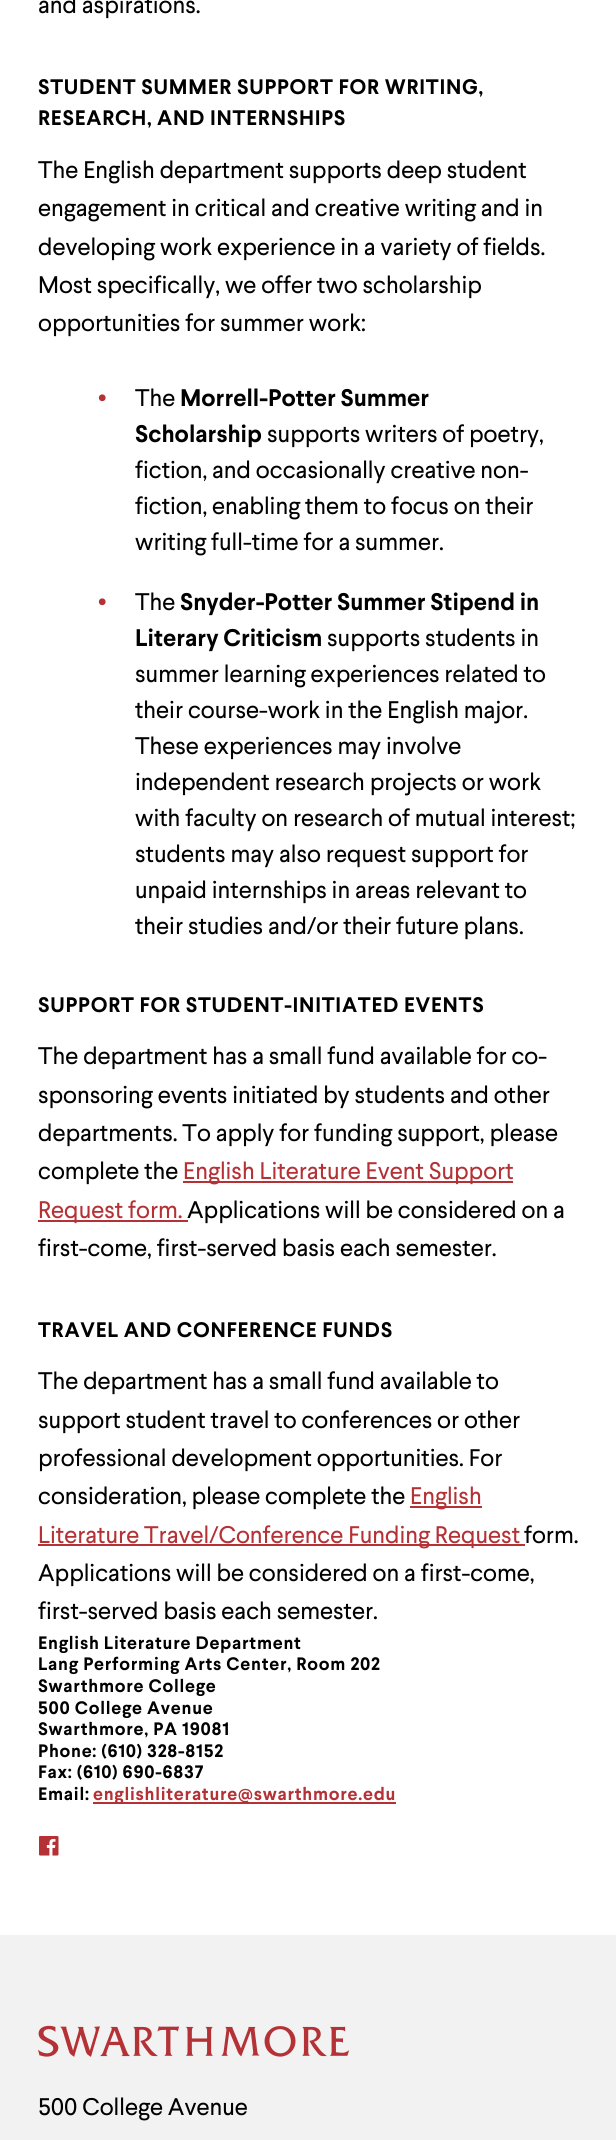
#include <cairo/cairo.h>
#include <math.h>
#include <stddef.h>


static void draw_spaced(cairo_t *cr, double x, double y, const char *s, double letter, double word) {
  cairo_move_to(cr, x, y);
  while (*s) {
    char ch[5] = {0};
    int n = 0;
    do ch[n++] = *s++; while ((*s & 0xC0) == 0x80);
    cairo_show_text(cr, ch);
    cairo_rel_move_to(cr, letter + word * (*ch == ' '), 0);
  }
}

static void draw_image(cairo_t *cr, const char *path, double x, double y, double w, double h) {
  cairo_surface_t *image = cairo_image_surface_create_from_png(path);
  cairo_save(cr);
  cairo_set_source_surface(cr, image, x, y);
  cairo_rectangle(cr, x, y, w, h);
  cairo_fill(cr);
  cairo_restore(cr);
  cairo_surface_destroy(image);
}

static void draw(cairo_t *cr) {
  cairo_set_source_rgb(cr, 1, 1, 1);
  cairo_paint(cr);
  cairo_set_source_rgb(cr, 180 / 255.0, 49 / 255.0, 53 / 255.0);
  cairo_rectangle(cr, 183, 1181, 330, 2);
  cairo_fill(cr);
  cairo_rectangle(cr, 38, 1220, 150, 2);
  cairo_fill(cr);
  cairo_rectangle(cr, 410, 1506, 72, 2);
  cairo_fill(cr);
  cairo_rectangle(cr, 38, 1544, 487, 2);
  cairo_fill(cr);
  cairo_rectangle(cr, 93, 1802, 303, 2);
  cairo_fill(cr);
  draw_image(cr, "images/1.png", 39, 1836, 20, 20);
  cairo_set_source_rgb(cr, 242 / 255.0, 242 / 255.0, 242 / 255.0);
  cairo_rectangle(cr, 0, 1935, 616, 205);
  cairo_fill(cr);
  draw_image(cr, "images/2.png", 38, 2025, 312, 32);
  cairo_select_font_face(cr, "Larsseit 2", CAIRO_FONT_SLANT_NORMAL, CAIRO_FONT_WEIGHT_NORMAL);
  cairo_set_font_size(cr, 24);
  cairo_set_source_rgb(cr, 0, 0, 0);
  cairo_move_to(cr, 38, 13);
  cairo_show_text(cr, "and aspirations.");
  cairo_select_font_face(cr, "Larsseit", CAIRO_FONT_SLANT_NORMAL, CAIRO_FONT_WEIGHT_NORMAL);
  cairo_set_font_size(cr, 21);
  draw_spaced(cr, 38, 94, "STUDENT SUMMER SUPPORT FOR WRITING,", 0.75, 0);
  draw_spaced(cr, 38, 125, "RESEARCH, AND INTERNSHIPS", 0.75, 0);
  cairo_select_font_face(cr, "Larsseit 2", CAIRO_FONT_SLANT_NORMAL, CAIRO_FONT_WEIGHT_NORMAL);
  cairo_set_font_size(cr, 24);
  cairo_move_to(cr, 38, 178);
  cairo_show_text(cr, "The English department supports deep student");
  cairo_move_to(cr, 38, 216);
  cairo_show_text(cr, "engagement in critical and creative writing and in");
  cairo_move_to(cr, 38, 255);
  cairo_show_text(cr, "developing work experience in a variety of fields.");
  cairo_move_to(cr, 38, 293);
  cairo_show_text(cr, "Most specifically, we offer two scholarship");
  cairo_move_to(cr, 38, 331);
  cairo_show_text(cr, "opportunities for summer work:");
  cairo_set_source_rgb(cr, 180 / 255.0, 49 / 255.0, 53 / 255.0);
  cairo_move_to(cr, 98, 404);
  cairo_show_text(cr, "•");
  cairo_set_source_rgb(cr, 0, 0, 0);
  cairo_move_to(cr, 135, 406);
  cairo_show_text(cr, "The");
  cairo_select_font_face(cr, "Larsseit", CAIRO_FONT_SLANT_NORMAL, CAIRO_FONT_WEIGHT_NORMAL);
  cairo_move_to(cr, 180, 406);
  cairo_show_text(cr, "Morrell-Potter Summer");
  cairo_move_to(cr, 135, 442);
  cairo_show_text(cr, "Scholarship");
  cairo_select_font_face(cr, "Larsseit 2", CAIRO_FONT_SLANT_NORMAL, CAIRO_FONT_WEIGHT_NORMAL);
  cairo_move_to(cr, 267, 442);
  cairo_show_text(cr, "supports writers of poetry,");
  cairo_move_to(cr, 135, 478);
  cairo_show_text(cr, "fiction, and occasionally creative non-");
  cairo_move_to(cr, 135, 514);
  cairo_show_text(cr, "fiction, enabling them to focus on their");
  cairo_move_to(cr, 135, 550);
  cairo_show_text(cr, "writing full-time for a summer.");
  cairo_set_source_rgb(cr, 180 / 255.0, 49 / 255.0, 53 / 255.0);
  cairo_move_to(cr, 98, 608);
  cairo_show_text(cr, "•");
  cairo_set_source_rgb(cr, 0, 0, 0);
  cairo_move_to(cr, 135, 610);
  cairo_show_text(cr, "The");
  cairo_select_font_face(cr, "Larsseit", CAIRO_FONT_SLANT_NORMAL, CAIRO_FONT_WEIGHT_NORMAL);
  cairo_move_to(cr, 180, 610);
  cairo_show_text(cr, "Snyder-Potter Summer Stipend in");
  cairo_move_to(cr, 135, 646);
  cairo_show_text(cr, "Literary Criticism");
  cairo_select_font_face(cr, "Larsseit 2", CAIRO_FONT_SLANT_NORMAL, CAIRO_FONT_WEIGHT_NORMAL);
  cairo_move_to(cr, 327, 646);
  cairo_show_text(cr, "supports students in");
  cairo_move_to(cr, 135, 682);
  cairo_show_text(cr, "summer learning experiences related to");
  cairo_move_to(cr, 135, 718);
  cairo_show_text(cr, "their course-work in the English major.");
  cairo_move_to(cr, 135, 754);
  cairo_show_text(cr, "These experiences may involve");
  cairo_move_to(cr, 135, 790);
  cairo_show_text(cr, "independent research projects or work");
  cairo_move_to(cr, 135, 826);
  cairo_show_text(cr, "with faculty on research of mutual interest;");
  cairo_move_to(cr, 135, 862);
  cairo_show_text(cr, "students may also request support for");
  cairo_move_to(cr, 135, 898);
  cairo_show_text(cr, "unpaid internships in areas relevant to");
  cairo_move_to(cr, 135, 934);
  cairo_show_text(cr, "their studies and/or their future plans.");
  cairo_select_font_face(cr, "Larsseit", CAIRO_FONT_SLANT_NORMAL, CAIRO_FONT_WEIGHT_NORMAL);
  cairo_set_font_size(cr, 21);
  draw_spaced(cr, 38, 1012, "SUPPORT FOR STUDENT-INITIATED EVENTS", 0.75, 0);
  cairo_select_font_face(cr, "Larsseit 2", CAIRO_FONT_SLANT_NORMAL, CAIRO_FONT_WEIGHT_NORMAL);
  cairo_set_font_size(cr, 24);
  cairo_move_to(cr, 38, 1064);
  cairo_show_text(cr, "The department has a small fund available for co-");
  cairo_move_to(cr, 38, 1103);
  cairo_show_text(cr, "sponsoring events initiated by students and other");
  cairo_move_to(cr, 38, 1141);
  cairo_show_text(cr, "departments. To apply for funding support, please");
  cairo_move_to(cr, 38, 1179);
  cairo_show_text(cr, "complete the");
  cairo_set_source_rgb(cr, 180 / 255.0, 49 / 255.0, 53 / 255.0);
  cairo_move_to(cr, 183, 1179);
  cairo_show_text(cr, "English Literature Event Support");
  cairo_move_to(cr, 38, 1218);
  cairo_show_text(cr, "Request form.");
  cairo_set_source_rgb(cr, 0, 0, 0);
  cairo_move_to(cr, 187, 1218);
  cairo_show_text(cr, "Applications will be considered on a");
  cairo_move_to(cr, 38, 1256);
  cairo_show_text(cr, "first-come, first-served basis each semester.");
  cairo_select_font_face(cr, "Larsseit", CAIRO_FONT_SLANT_NORMAL, CAIRO_FONT_WEIGHT_NORMAL);
  cairo_set_font_size(cr, 21);
  draw_spaced(cr, 38, 1337, "TRAVEL AND CONFERENCE FUNDS", 0.75, 0);
  cairo_select_font_face(cr, "Larsseit 2", CAIRO_FONT_SLANT_NORMAL, CAIRO_FONT_WEIGHT_NORMAL);
  cairo_set_font_size(cr, 24);
  cairo_move_to(cr, 38, 1389);
  cairo_show_text(cr, "The department has a small fund available to");
  cairo_move_to(cr, 38, 1428);
  cairo_show_text(cr, "support student travel to conferences or other");
  cairo_move_to(cr, 38, 1466);
  cairo_show_text(cr, "professional development opportunities. For");
  cairo_move_to(cr, 38, 1504);
  cairo_show_text(cr, "consideration, please complete the");
  cairo_set_source_rgb(cr, 180 / 255.0, 49 / 255.0, 53 / 255.0);
  cairo_move_to(cr, 410, 1504);
  cairo_show_text(cr, "English");
  cairo_move_to(cr, 38, 1543);
  cairo_show_text(cr, "Literature Travel/Conference Funding Request");
  cairo_set_source_rgb(cr, 0, 0, 0);
  cairo_move_to(cr, 524, 1543);
  cairo_show_text(cr, "form.");
  cairo_move_to(cr, 38, 1581);
  cairo_show_text(cr, "Applications will be considered on a first-come,");
  cairo_move_to(cr, 38, 1619);
  cairo_show_text(cr, "first-served basis each semester.");
  cairo_select_font_face(cr, "Larsseit", CAIRO_FONT_SLANT_NORMAL, CAIRO_FONT_WEIGHT_NORMAL);
  cairo_set_font_size(cr, 18);
  draw_spaced(cr, 38, 1649, "English Literature Department", 0.75, 0);
  draw_spaced(cr, 38, 1670, "Lang Performing Arts Center, Room 202", 0.75, 0);
  draw_spaced(cr, 38, 1692, "Swarthmore College", 0.75, 0);
  draw_spaced(cr, 38, 1714, "500 College Avenue", 0.75, 0);
  draw_spaced(cr, 38, 1735, "Swarthmore, PA 19081", 0.75, 0);
  draw_spaced(cr, 38, 1757, "Phone: (610) 328-8152", 0.75, 0);
  draw_spaced(cr, 38, 1778, "Fax: (610) 690-6837", 0.75, 0);
  draw_spaced(cr, 38, 1800, "Email:", 0.75, 0);
  cairo_set_source_rgb(cr, 180 / 255.0, 49 / 255.0, 53 / 255.0);
  draw_spaced(cr, 93, 1800, "englishliterature@swarthmore.edu", 0.75, 0);
  cairo_select_font_face(cr, "Larsseit 2", CAIRO_FONT_SLANT_NORMAL, CAIRO_FONT_WEIGHT_NORMAL);
  cairo_set_font_size(cr, 24);
  cairo_set_source_rgb(cr, 0, 0, 0);
  cairo_move_to(cr, 38, 2115);
  cairo_show_text(cr, "500 College Avenue");
}

int main(void) {
  cairo_surface_t *surface = cairo_image_surface_create(CAIRO_FORMAT_RGB24, 616, 2140);
  cairo_t *cr = cairo_create(surface);
  cairo_font_options_t *options = cairo_font_options_create();
  cairo_font_options_set_hint_metrics(options, CAIRO_HINT_METRICS_OFF);
  cairo_font_options_set_hint_style(options, CAIRO_HINT_STYLE_NONE);
  cairo_set_font_options(cr, options);
  cairo_set_miter_limit(cr, 4);
  draw(cr);
  cairo_surface_write_to_png(surface, "out.png");
  cairo_font_options_destroy(options);
  cairo_destroy(cr);
  cairo_surface_destroy(surface);
  return 0;
}
